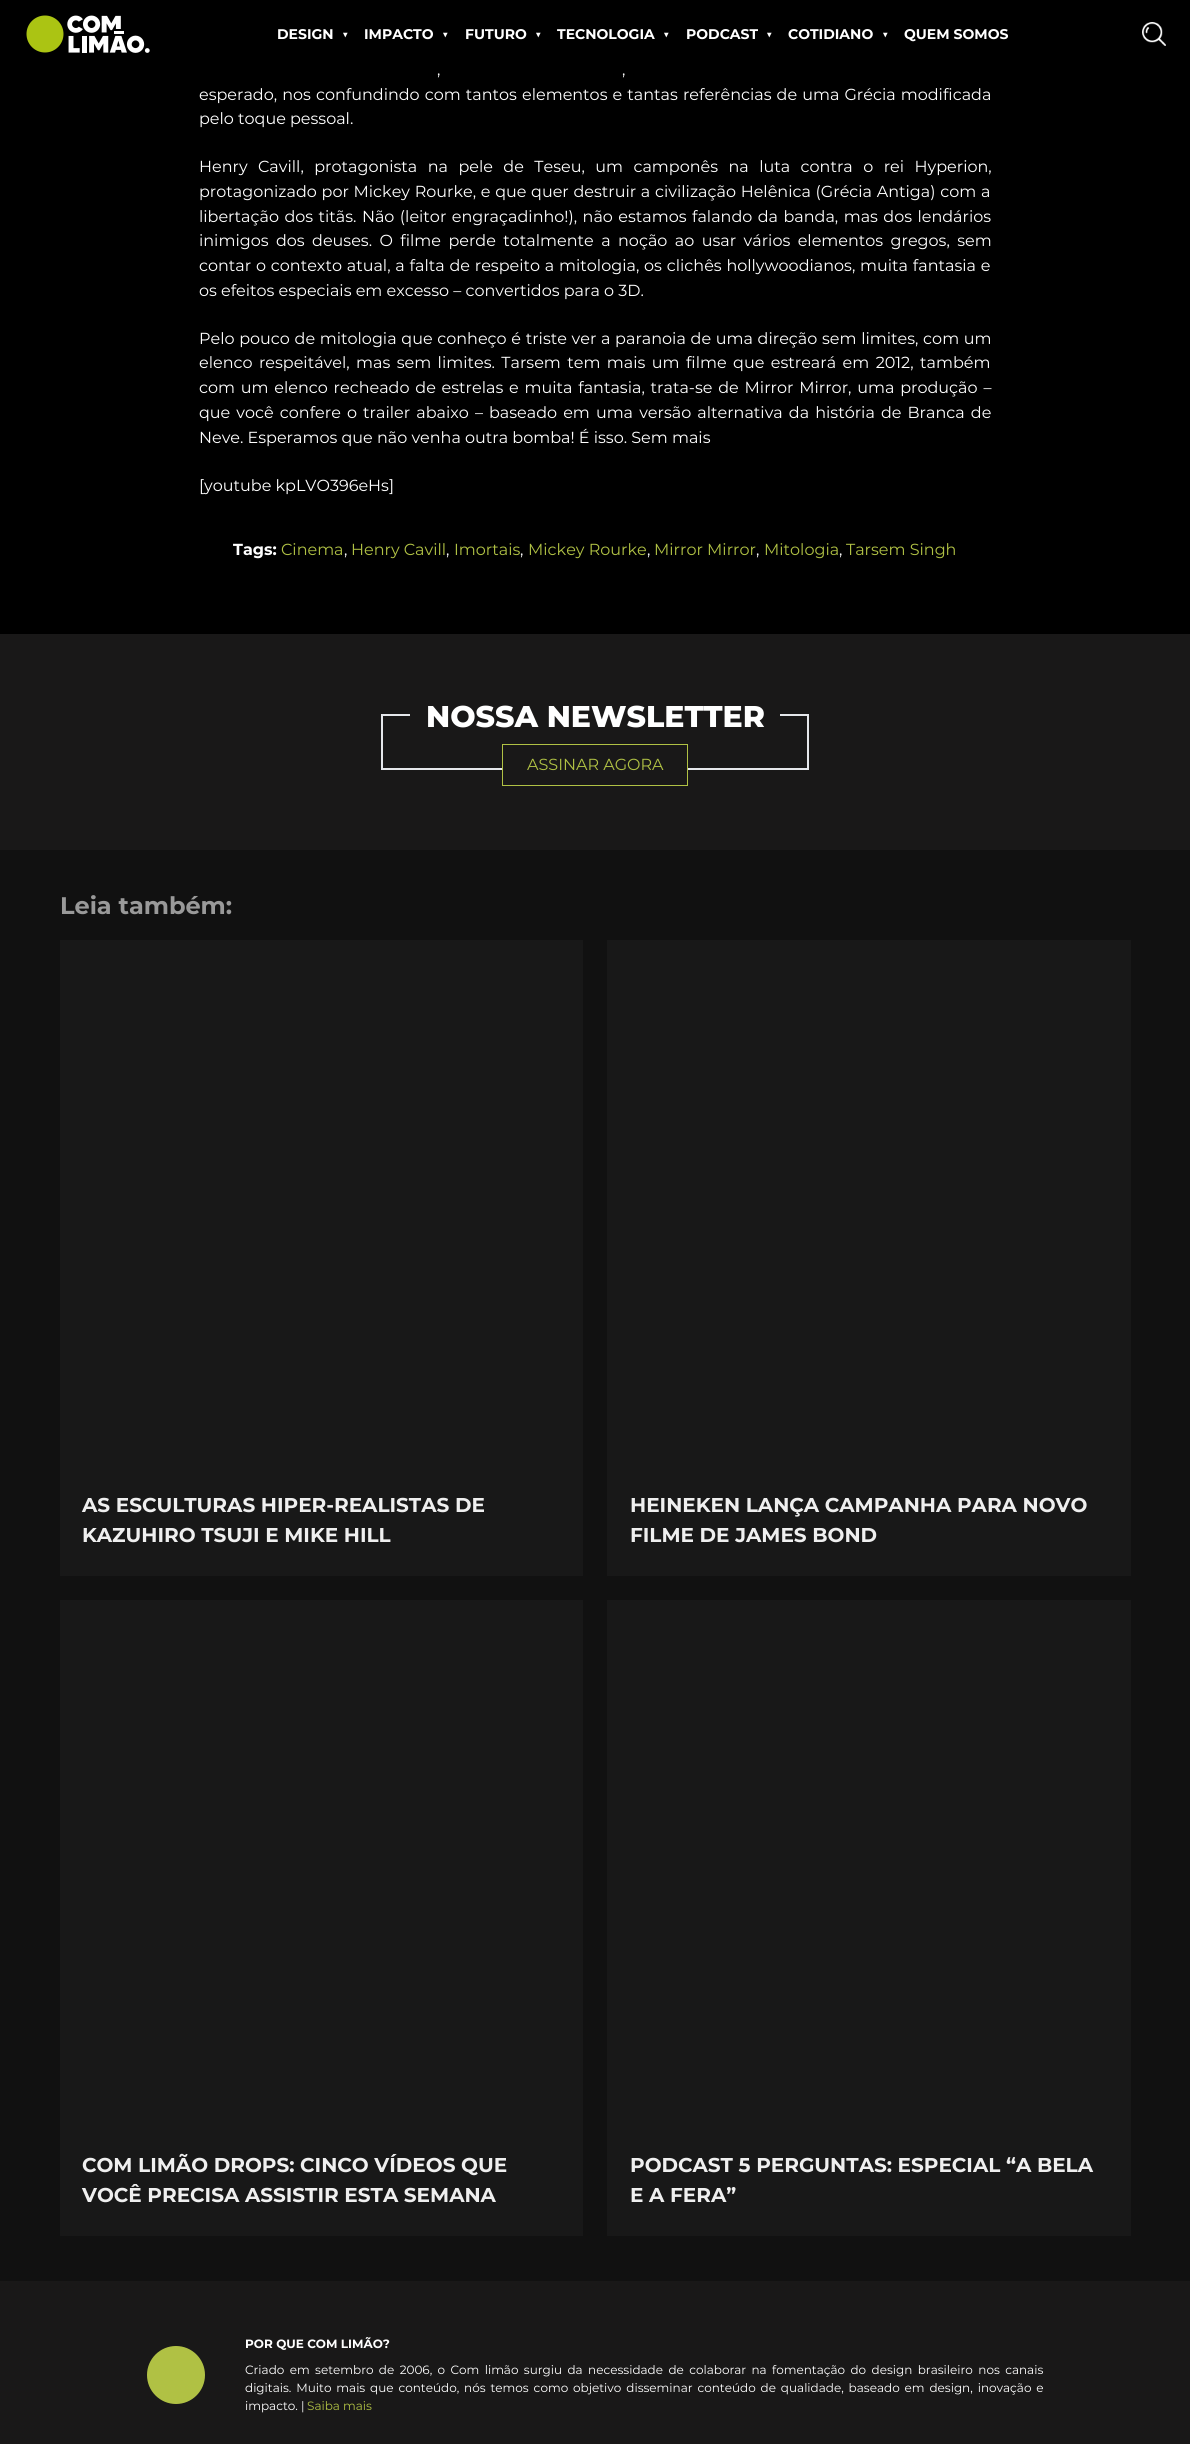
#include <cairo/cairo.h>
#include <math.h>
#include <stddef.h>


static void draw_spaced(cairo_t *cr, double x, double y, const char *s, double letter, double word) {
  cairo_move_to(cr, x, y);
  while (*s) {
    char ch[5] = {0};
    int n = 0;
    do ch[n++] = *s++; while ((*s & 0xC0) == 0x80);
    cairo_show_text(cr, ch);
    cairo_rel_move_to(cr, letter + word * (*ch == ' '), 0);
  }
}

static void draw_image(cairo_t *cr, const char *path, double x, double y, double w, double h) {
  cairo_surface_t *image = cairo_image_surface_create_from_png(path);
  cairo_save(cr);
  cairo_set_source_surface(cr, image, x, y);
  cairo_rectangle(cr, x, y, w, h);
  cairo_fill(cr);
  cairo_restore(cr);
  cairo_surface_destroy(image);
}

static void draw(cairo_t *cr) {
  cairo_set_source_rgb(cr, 0, 0, 0);
  cairo_paint(cr);
  draw_image(cr, "images/1.png", 26, 15, 124, 38);
  draw_image(cr, "images/2.png", 1142, 22, 24, 24);
  cairo_set_source_rgb(cr, 25 / 255.0, 24 / 255.0, 24 / 255.0);
  cairo_rectangle(cr, 0, 634, 1190, 216);
  cairo_fill(cr);
  cairo_rectangle(cr, 382, 715, 426, 54);
  cairo_set_source_rgb(cr, 229 / 255.0, 231 / 255.0, 235 / 255.0);
  cairo_stroke(cr);
  cairo_set_source_rgb(cr, 25 / 255.0, 24 / 255.0, 24 / 255.0);
  cairo_rectangle(cr, 410, 714, 370, 2);
  cairo_fill(cr);
  cairo_rectangle(cr, 503, 768, 184, 2);
  cairo_fill(cr);
  cairo_rectangle(cr, 502.5, 744.5, 185, 41);
  cairo_set_source_rgb(cr, 176 / 255.0, 193 / 255.0, 68 / 255.0);
  cairo_set_line_width(cr, 1);
  cairo_stroke(cr);
  cairo_set_source_rgb(cr, 17 / 255.0, 17 / 255.0, 17 / 255.0);
  cairo_rectangle(cr, 0, 850, 1190, 1431);
  cairo_fill(cr);
  cairo_set_source_rgb(cr, 24 / 255.0, 24 / 255.0, 24 / 255.0);
  cairo_rectangle(cr, 60, 940, 523, 636);
  cairo_fill(cr);
  cairo_rectangle(cr, 607, 940, 524, 636);
  cairo_fill(cr);
  cairo_rectangle(cr, 60, 1600, 523, 636);
  cairo_fill(cr);
  cairo_rectangle(cr, 607, 1600, 524, 636);
  cairo_fill(cr);
  cairo_set_source_rgb(cr, 25 / 255.0, 24 / 255.0, 24 / 255.0);
  cairo_rectangle(cr, 0, 2281, 1190, 163);
  cairo_fill(cr);
  cairo_set_source_rgb(cr, 176 / 255.0, 193 / 255.0, 68 / 255.0);
  cairo_arc(cr, 176, 2375, 29, 0, 2 * M_PI);
  cairo_fill(cr);
  cairo_select_font_face(cr, "Montserrat", CAIRO_FONT_SLANT_NORMAL, CAIRO_FONT_WEIGHT_BOLD);
  cairo_set_font_size(cr, 14);
  cairo_set_source_rgb(cr, 1, 1, 1);
  cairo_move_to(cr, 277, 39);
  cairo_show_text(cr, "DESIGN");
  cairo_set_font_size(cr, 11);
  cairo_move_to(cr, 342, 38);
  cairo_show_text(cr, "▼");
  cairo_set_font_size(cr, 14);
  cairo_move_to(cr, 364, 39);
  cairo_show_text(cr, "IMPACTO");
  cairo_set_font_size(cr, 11);
  cairo_move_to(cr, 442, 38);
  cairo_show_text(cr, "▼");
  cairo_set_font_size(cr, 14);
  cairo_move_to(cr, 465, 39);
  cairo_show_text(cr, "FUTURO");
  cairo_set_font_size(cr, 11);
  cairo_move_to(cr, 535, 38);
  cairo_show_text(cr, "▼");
  cairo_set_font_size(cr, 14);
  cairo_move_to(cr, 557, 39);
  cairo_show_text(cr, "TECNOLOGIA");
  cairo_set_font_size(cr, 11);
  cairo_move_to(cr, 663, 38);
  cairo_show_text(cr, "▼");
  cairo_set_font_size(cr, 14);
  cairo_move_to(cr, 686, 39);
  cairo_show_text(cr, "PODCAST");
  cairo_set_font_size(cr, 11);
  cairo_move_to(cr, 766, 38);
  cairo_show_text(cr, "▼");
  cairo_set_font_size(cr, 14);
  cairo_move_to(cr, 788, 39);
  cairo_show_text(cr, "COTIDIANO");
  cairo_set_font_size(cr, 11);
  cairo_move_to(cr, 882, 38);
  cairo_show_text(cr, "▼");
  cairo_set_font_size(cr, 14);
  cairo_move_to(cr, 904, 39);
  cairo_show_text(cr, "QUEM SOMOS");
  cairo_select_font_face(cr, "Montserrat", CAIRO_FONT_SLANT_NORMAL, CAIRO_FONT_WEIGHT_NORMAL);
  cairo_set_font_size(cr, 16);
  draw_spaced(cr, 437, 75, ",", 0, 1);
  draw_spaced(cr, 622, 75, ",", 0, 1);
  draw_spaced(cr, 199, 100, "esperado, nos confundindo com tantos elementos e tantas referências de uma Grécia modificada", 0, 0.9);
  cairo_move_to(cr, 199, 124);
  cairo_show_text(cr, "pelo toque pessoal.");
  draw_spaced(cr, 199, 172, "Henry Cavill, protagonista na pele de Teseu, um camponês na luta contra o rei Hyperion,", 0, 6.25);
  draw_spaced(cr, 199, 197, "protagonizado por Mickey Rourke, e que quer destruir a civilização Helênica (Grécia Antiga) com a", 0, 0.5);
  draw_spaced(cr, 199, 222, "libertação dos titãs. Não (leitor engraçadinho!), não estamos falando da banda, mas dos lendários", 0, 1.25);
  draw_spaced(cr, 199, 246, "inimigos dos deuses. O filme perde totalmente a noção ao usar vários elementos gregos, sem", 0, 3.25);
  draw_spaced(cr, 199, 271, "contar o contexto atual, a falta de respeito a mitologia, os clichês hollywoodianos, muita fantasia e", 0, 0.6);
  cairo_move_to(cr, 199, 296);
  cairo_show_text(cr, "os efeitos especiais em excesso – convertidos para o 3D.");
  draw_spaced(cr, 199, 344, "Pelo pouco de mitologia que conheço é triste ver a paranoia de uma direção sem limites, com um", 0, 0.5);
  draw_spaced(cr, 199, 368, "elenco respeitável, mas sem limites. Tarsem tem mais um filme que estreará em 2012, também", 0, 2.25);
  draw_spaced(cr, 199, 393, "com um elenco recheado de estrelas e muita fantasia, trata-se de Mirror Mirror, uma produção –", 0, 1.6);
  draw_spaced(cr, 199, 418, "que você confere o trailer abaixo – baseado em uma versão alternativa da história de Branca de", 0, 1.9);
  cairo_move_to(cr, 199, 443);
  cairo_show_text(cr, "Neve. Esperamos que não venha outra bomba! É isso. Sem mais");
  cairo_move_to(cr, 199, 491);
  cairo_show_text(cr, "[youtube kpLVO396eHs]");
  cairo_select_font_face(cr, "Montserrat", CAIRO_FONT_SLANT_NORMAL, CAIRO_FONT_WEIGHT_BOLD);
  cairo_move_to(cr, 233, 555);
  cairo_show_text(cr, "Tags:");
  cairo_select_font_face(cr, "Montserrat", CAIRO_FONT_SLANT_NORMAL, CAIRO_FONT_WEIGHT_NORMAL);
  cairo_set_source_rgb(cr, 176 / 255.0, 193 / 255.0, 68 / 255.0);
  cairo_move_to(cr, 281, 555);
  cairo_show_text(cr, "Cinema");
  cairo_set_source_rgb(cr, 1, 1, 1);
  cairo_move_to(cr, 344, 555);
  cairo_show_text(cr, ",");
  cairo_set_source_rgb(cr, 176 / 255.0, 193 / 255.0, 68 / 255.0);
  cairo_move_to(cr, 351, 555);
  cairo_show_text(cr, "Henry Cavill");
  cairo_set_source_rgb(cr, 1, 1, 1);
  cairo_move_to(cr, 446, 555);
  cairo_show_text(cr, ",");
  cairo_set_source_rgb(cr, 176 / 255.0, 193 / 255.0, 68 / 255.0);
  cairo_move_to(cr, 454, 555);
  cairo_show_text(cr, "Imortais");
  cairo_set_source_rgb(cr, 1, 1, 1);
  cairo_move_to(cr, 520, 555);
  cairo_show_text(cr, ",");
  cairo_set_source_rgb(cr, 176 / 255.0, 193 / 255.0, 68 / 255.0);
  cairo_move_to(cr, 528, 555);
  cairo_show_text(cr, "Mickey Rourke");
  cairo_set_source_rgb(cr, 1, 1, 1);
  cairo_move_to(cr, 647, 555);
  cairo_show_text(cr, ",");
  cairo_set_source_rgb(cr, 176 / 255.0, 193 / 255.0, 68 / 255.0);
  cairo_move_to(cr, 654, 555);
  cairo_show_text(cr, "Mirror Mirror");
  cairo_set_source_rgb(cr, 1, 1, 1);
  cairo_move_to(cr, 756, 555);
  cairo_show_text(cr, ",");
  cairo_set_source_rgb(cr, 176 / 255.0, 193 / 255.0, 68 / 255.0);
  cairo_move_to(cr, 764, 555);
  cairo_show_text(cr, "Mitologia");
  cairo_set_source_rgb(cr, 1, 1, 1);
  cairo_move_to(cr, 839, 555);
  cairo_show_text(cr, ",");
  cairo_set_source_rgb(cr, 176 / 255.0, 193 / 255.0, 68 / 255.0);
  cairo_move_to(cr, 846, 555);
  cairo_show_text(cr, "Tarsem Singh");
  cairo_select_font_face(cr, "Montserrat ExtraBold", CAIRO_FONT_SLANT_NORMAL, CAIRO_FONT_WEIGHT_NORMAL);
  cairo_set_font_size(cr, 30);
  cairo_set_source_rgb(cr, 1, 1, 1);
  cairo_move_to(cr, 426, 727);
  cairo_show_text(cr, "NOSSA NEWSLETTER");
  cairo_select_font_face(cr, "Montserrat", CAIRO_FONT_SLANT_NORMAL, CAIRO_FONT_WEIGHT_NORMAL);
  cairo_set_font_size(cr, 16);
  cairo_set_source_rgb(cr, 176 / 255.0, 193 / 255.0, 68 / 255.0);
  cairo_move_to(cr, 527, 770);
  cairo_show_text(cr, "ASSINAR AGORA");
  cairo_select_font_face(cr, "Montserrat", CAIRO_FONT_SLANT_NORMAL, CAIRO_FONT_WEIGHT_BOLD);
  cairo_set_font_size(cr, 24);
  cairo_set_source_rgb(cr, 153 / 255.0, 153 / 255.0, 153 / 255.0);
  cairo_move_to(cr, 60, 914);
  cairo_show_text(cr, "Leia também:");
  cairo_set_font_size(cr, 20);
  cairo_set_source_rgb(cr, 239 / 255.0, 239 / 255.0, 239 / 255.0);
  cairo_move_to(cr, 82, 1512);
  cairo_show_text(cr, "AS ESCULTURAS HIPER-REALISTAS DE");
  cairo_move_to(cr, 82, 1542);
  cairo_show_text(cr, "KAZUHIRO TSUJI E MIKE HILL");
  cairo_move_to(cr, 630, 1512);
  cairo_show_text(cr, "HEINEKEN LANÇA CAMPANHA PARA NOVO");
  cairo_move_to(cr, 630, 1542);
  cairo_show_text(cr, "FILME DE JAMES BOND");
  cairo_move_to(cr, 82, 2172);
  cairo_show_text(cr, "COM LIMÃO DROPS: CINCO VÍDEOS QUE");
  cairo_move_to(cr, 82, 2202);
  cairo_show_text(cr, "VOCÊ PRECISA ASSISTIR ESTA SEMANA");
  cairo_move_to(cr, 630, 2172);
  cairo_show_text(cr, "PODCAST 5 PERGUNTAS: ESPECIAL “A BELA");
  cairo_move_to(cr, 630, 2202);
  cairo_show_text(cr, "E A FERA”");
  cairo_set_font_size(cr, 12);
  cairo_set_source_rgb(cr, 1, 1, 1);
  cairo_move_to(cr, 245, 2348);
  cairo_show_text(cr, "POR QUE COM LIMÃO?");
  cairo_select_font_face(cr, "Montserrat", CAIRO_FONT_SLANT_NORMAL, CAIRO_FONT_WEIGHT_NORMAL);
  draw_spaced(cr, 245, 2374, "Criado em setembro de 2006, o Com limão surgiu da necessidade de colaborar na fomentação do design brasileiro nos canais", 0, 2.25);
  draw_spaced(cr, 245, 2392, "digitais. Muito mais que conteúdo, nós temos como objetivo disseminar conteúdo de qualidade, baseado em design, inovação e", 0, 1.75);
  cairo_move_to(cr, 245, 2410);
  cairo_show_text(cr, "impacto. |");
  cairo_set_source_rgb(cr, 176 / 255.0, 193 / 255.0, 68 / 255.0);
  cairo_move_to(cr, 307, 2410);
  cairo_show_text(cr, "Saiba mais");
}

int main(void) {
  cairo_surface_t *surface = cairo_image_surface_create(CAIRO_FORMAT_RGB24, 1190, 2444);
  cairo_t *cr = cairo_create(surface);
  cairo_font_options_t *options = cairo_font_options_create();
  cairo_font_options_set_hint_metrics(options, CAIRO_HINT_METRICS_OFF);
  cairo_font_options_set_hint_style(options, CAIRO_HINT_STYLE_NONE);
  cairo_set_font_options(cr, options);
  cairo_set_miter_limit(cr, 4);
  draw(cr);
  cairo_surface_write_to_png(surface, "out.png");
  cairo_font_options_destroy(options);
  cairo_destroy(cr);
  cairo_surface_destroy(surface);
  return 0;
}
